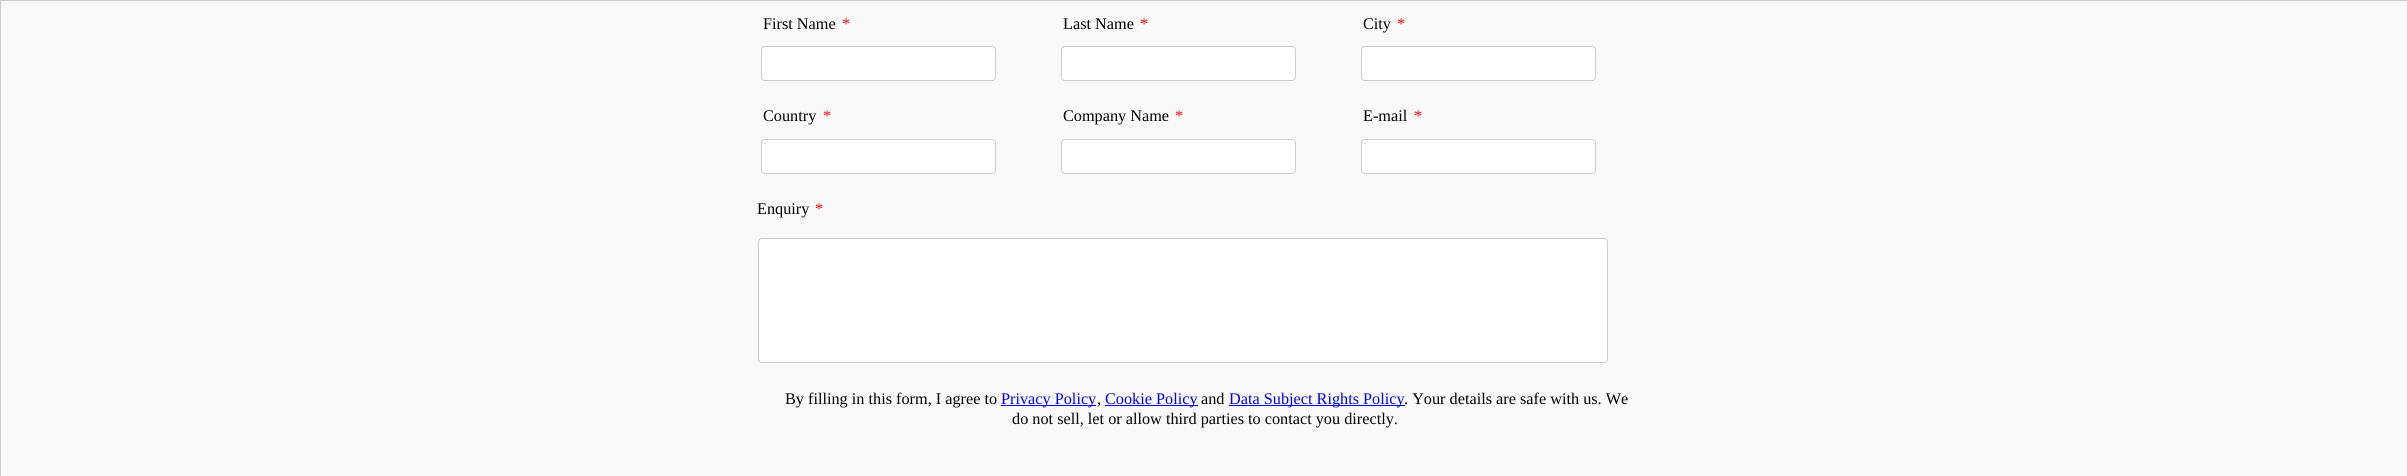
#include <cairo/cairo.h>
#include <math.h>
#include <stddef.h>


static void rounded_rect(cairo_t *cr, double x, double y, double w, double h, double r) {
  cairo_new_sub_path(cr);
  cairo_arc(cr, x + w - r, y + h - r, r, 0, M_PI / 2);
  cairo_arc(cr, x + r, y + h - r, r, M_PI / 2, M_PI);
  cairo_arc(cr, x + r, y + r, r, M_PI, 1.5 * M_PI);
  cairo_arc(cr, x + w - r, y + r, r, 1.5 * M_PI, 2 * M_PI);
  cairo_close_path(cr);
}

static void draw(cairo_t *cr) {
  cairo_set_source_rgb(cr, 249 / 255.0, 249 / 255.0, 249 / 255.0);
  cairo_paint(cr);
  cairo_rectangle(cr, 0.5, 0.5, 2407, 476);
  cairo_set_source_rgb(cr, 204 / 255.0, 204 / 255.0, 204 / 255.0);
  cairo_set_line_width(cr, 1);
  cairo_stroke(cr);
  cairo_set_source_rgb(cr, 1, 1, 1);
  rounded_rect(cr, 761.5, 46.5, 234, 34, 3.5);
  cairo_fill_preserve(cr);
  cairo_set_source_rgb(cr, 204 / 255.0, 204 / 255.0, 204 / 255.0);
  cairo_stroke(cr);
  cairo_set_source_rgb(cr, 1, 1, 1);
  rounded_rect(cr, 1061.5, 46.5, 234, 34, 3.5);
  cairo_fill_preserve(cr);
  cairo_set_source_rgb(cr, 204 / 255.0, 204 / 255.0, 204 / 255.0);
  cairo_stroke(cr);
  cairo_set_source_rgb(cr, 1, 1, 1);
  rounded_rect(cr, 1361.5, 46.5, 234, 34, 3.5);
  cairo_fill_preserve(cr);
  cairo_set_source_rgb(cr, 204 / 255.0, 204 / 255.0, 204 / 255.0);
  cairo_stroke(cr);
  cairo_set_source_rgb(cr, 1, 1, 1);
  rounded_rect(cr, 761.5, 139.5, 234, 34, 3.5);
  cairo_fill_preserve(cr);
  cairo_set_source_rgb(cr, 204 / 255.0, 204 / 255.0, 204 / 255.0);
  cairo_stroke(cr);
  cairo_set_source_rgb(cr, 1, 1, 1);
  rounded_rect(cr, 1061.5, 139.5, 234, 34, 3.5);
  cairo_fill_preserve(cr);
  cairo_set_source_rgb(cr, 204 / 255.0, 204 / 255.0, 204 / 255.0);
  cairo_stroke(cr);
  cairo_set_source_rgb(cr, 1, 1, 1);
  rounded_rect(cr, 1361.5, 139.5, 234, 34, 3.5);
  cairo_fill_preserve(cr);
  cairo_set_source_rgb(cr, 204 / 255.0, 204 / 255.0, 204 / 255.0);
  cairo_stroke(cr);
  cairo_set_source_rgb(cr, 1, 1, 1);
  rounded_rect(cr, 758.5, 238.5, 849, 124, 3.5);
  cairo_fill_preserve(cr);
  cairo_set_source_rgb(cr, 204 / 255.0, 204 / 255.0, 204 / 255.0);
  cairo_stroke(cr);
  cairo_set_source_rgb(cr, 0, 0, 238 / 255.0);
  cairo_rectangle(cr, 1001, 405, 95, 1);
  cairo_fill(cr);
  cairo_rectangle(cr, 1105, 405, 93, 1);
  cairo_fill(cr);
  cairo_rectangle(cr, 1229, 405, 176, 1);
  cairo_fill(cr);
  cairo_select_font_face(cr, "Liberation Serif", CAIRO_FONT_SLANT_NORMAL, CAIRO_FONT_WEIGHT_NORMAL);
  cairo_set_font_size(cr, 16.25);
  cairo_set_source_rgb(cr, 0, 0, 0);
  cairo_move_to(cr, 763, 29);
  cairo_show_text(cr, "First Name");
  cairo_set_source_rgb(cr, 1, 0, 0);
  cairo_move_to(cr, 842, 29);
  cairo_show_text(cr, "*");
  cairo_set_source_rgb(cr, 0, 0, 0);
  cairo_move_to(cr, 1063, 29);
  cairo_show_text(cr, "Last Name");
  cairo_set_source_rgb(cr, 1, 0, 0);
  cairo_move_to(cr, 1140, 29);
  cairo_show_text(cr, "*");
  cairo_set_source_rgb(cr, 0, 0, 0);
  cairo_move_to(cr, 1363, 29);
  cairo_show_text(cr, "City");
  cairo_set_source_rgb(cr, 1, 0, 0);
  cairo_move_to(cr, 1397, 29);
  cairo_show_text(cr, "*");
  cairo_set_source_rgb(cr, 0, 0, 0);
  cairo_move_to(cr, 763, 121);
  cairo_show_text(cr, "Country");
  cairo_set_source_rgb(cr, 1, 0, 0);
  cairo_move_to(cr, 823, 121);
  cairo_show_text(cr, "*");
  cairo_set_source_rgb(cr, 0, 0, 0);
  cairo_move_to(cr, 1063, 121);
  cairo_show_text(cr, "Company Name");
  cairo_set_source_rgb(cr, 1, 0, 0);
  cairo_move_to(cr, 1175, 121);
  cairo_show_text(cr, "*");
  cairo_set_source_rgb(cr, 0, 0, 0);
  cairo_move_to(cr, 1363, 121);
  cairo_show_text(cr, "E-mail");
  cairo_set_source_rgb(cr, 1, 0, 0);
  cairo_move_to(cr, 1414, 121);
  cairo_show_text(cr, "*");
  cairo_set_source_rgb(cr, 0, 0, 0);
  cairo_move_to(cr, 757, 214);
  cairo_show_text(cr, "Enquiry");
  cairo_set_source_rgb(cr, 1, 0, 0);
  cairo_move_to(cr, 815, 214);
  cairo_show_text(cr, "*");
  cairo_set_source_rgb(cr, 0, 0, 0);
  cairo_move_to(cr, 785, 404);
  cairo_show_text(cr, "By filling in this form, I agree to");
  cairo_set_source_rgb(cr, 0, 0, 238 / 255.0);
  cairo_move_to(cr, 1001, 404);
  cairo_show_text(cr, "Privacy Policy");
  cairo_set_source_rgb(cr, 0, 0, 0);
  cairo_move_to(cr, 1097, 404);
  cairo_show_text(cr, ",");
  cairo_set_source_rgb(cr, 0, 0, 238 / 255.0);
  cairo_move_to(cr, 1105, 404);
  cairo_show_text(cr, "Cookie Policy");
  cairo_set_source_rgb(cr, 0, 0, 0);
  cairo_move_to(cr, 1201, 404);
  cairo_show_text(cr, "and");
  cairo_set_source_rgb(cr, 0, 0, 238 / 255.0);
  cairo_move_to(cr, 1229, 404);
  cairo_show_text(cr, "Data Subject Rights Policy");
  cairo_set_source_rgb(cr, 0, 0, 0);
  cairo_move_to(cr, 1404, 404);
  cairo_show_text(cr, ". Your details are safe with us. We");
  cairo_move_to(cr, 1012, 424);
  cairo_show_text(cr, "do not sell, let or allow third parties to contact you directly.");
}

int main(void) {
  cairo_surface_t *surface = cairo_image_surface_create(CAIRO_FORMAT_RGB24, 2407, 476);
  cairo_t *cr = cairo_create(surface);
  cairo_font_options_t *options = cairo_font_options_create();
  cairo_font_options_set_hint_metrics(options, CAIRO_HINT_METRICS_OFF);
  cairo_font_options_set_hint_style(options, CAIRO_HINT_STYLE_NONE);
  cairo_set_font_options(cr, options);
  cairo_set_miter_limit(cr, 4);
  draw(cr);
  cairo_surface_write_to_png(surface, "out.png");
  cairo_font_options_destroy(options);
  cairo_destroy(cr);
  cairo_surface_destroy(surface);
  return 0;
}
